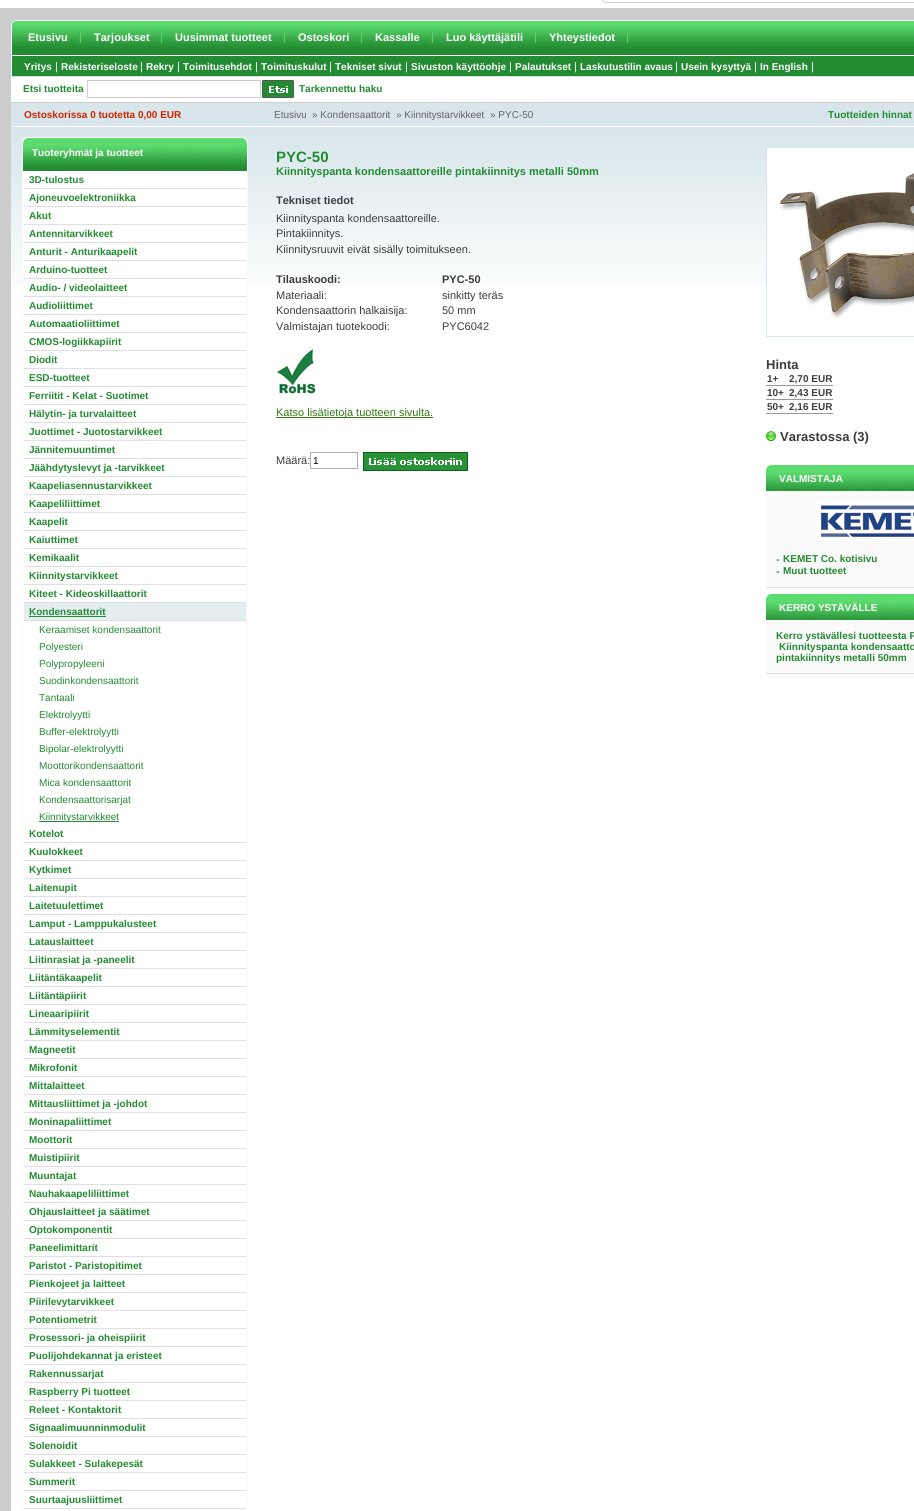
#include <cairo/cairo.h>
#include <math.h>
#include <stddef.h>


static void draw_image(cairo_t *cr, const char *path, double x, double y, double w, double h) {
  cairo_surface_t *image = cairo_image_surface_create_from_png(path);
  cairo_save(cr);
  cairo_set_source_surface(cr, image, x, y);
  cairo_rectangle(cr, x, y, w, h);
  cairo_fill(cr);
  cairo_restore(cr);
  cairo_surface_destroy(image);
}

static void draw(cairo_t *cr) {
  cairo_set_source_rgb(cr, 205 / 255.0, 205 / 255.0, 205 / 255.0);
  cairo_paint(cr);
  cairo_set_source_rgb(cr, 1, 1, 1);
  cairo_rectangle(cr, 0, 0, 914, 8);
  cairo_fill(cr);
  draw_image(cr, "images/1.png", 602, 0, 312, 3);
  draw_image(cr, "images/2.png", 11, 20, 903, 36);
  draw_image(cr, "images/3.png", 11, 20, 4, 35);
  draw_image(cr, "images/4.png", 79, 32, 2, 11);
  draw_image(cr, "images/4.png", 160, 32, 2, 11);
  draw_image(cr, "images/4.png", 283, 32, 2, 11);
  draw_image(cr, "images/4.png", 360, 32, 2, 11);
  draw_image(cr, "images/4.png", 431, 32, 2, 11);
  draw_image(cr, "images/4.png", 534, 32, 2, 11);
  draw_image(cr, "images/4.png", 626, 32, 2, 11);
  cairo_set_source_rgb(cr, 35 / 255.0, 139 / 255.0, 50 / 255.0);
  cairo_rectangle(cr, 12, 56, 902, 20);
  cairo_fill(cr);
  cairo_set_source_rgb(cr, 1, 1, 1);
  cairo_rectangle(cr, 11, 56, 1, 20);
  cairo_fill(cr);
  cairo_rectangle(cr, 11, 77, 903, 25);
  cairo_fill(cr);
  cairo_set_source_rgb(cr, 210 / 255.0, 226 / 255.0, 232 / 255.0);
  cairo_rectangle(cr, 11, 76, 903, 1);
  cairo_fill(cr);
  cairo_rectangle(cr, 87.5, 80.5, 173, 17);
  cairo_set_source_rgb(cr, 204 / 255.0, 204 / 255.0, 204 / 255.0);
  cairo_set_line_width(cr, 1);
  cairo_stroke(cr);
  draw_image(cr, "images/5.png", 262, 80, 32, 18);
  cairo_set_source_rgb(cr, 216 / 255.0, 230 / 255.0, 235 / 255.0);
  cairo_rectangle(cr, 12, 103, 902, 23);
  cairo_fill(cr);
  cairo_set_source_rgb(cr, 1, 1, 1);
  cairo_rectangle(cr, 11, 126, 903, 1);
  cairo_fill(cr);
  cairo_set_source_rgb(cr, 216 / 255.0, 230 / 255.0, 235 / 255.0);
  cairo_rectangle(cr, 11, 103, 1, 24);
  cairo_fill(cr);
  cairo_set_source_rgb(cr, 1, 1, 1);
  cairo_rectangle(cr, 11, 286, 903, 1225);
  cairo_fill(cr);
  draw_image(cr, "images/6.png", 11, 127, 903, 159);
  cairo_set_source_rgb(cr, 250 / 255.0, 250 / 255.0, 250 / 255.0);
  cairo_rectangle(cr, 22, 171, 226, 1340);
  cairo_fill(cr);
  draw_image(cr, "images/7.png", 22, 137, 226, 34);
  cairo_set_source_rgb(cr, 1, 1, 1);
  cairo_rectangle(cr, 23, 171, 223, 1340);
  cairo_fill(cr);
  cairo_set_source_rgb(cr, 224 / 255.0, 223 / 255.0, 227 / 255.0);
  cairo_rectangle(cr, 24, 188, 222, 1);
  cairo_fill(cr);
  cairo_rectangle(cr, 24, 206, 222, 1);
  cairo_fill(cr);
  cairo_rectangle(cr, 24, 224, 222, 1);
  cairo_fill(cr);
  cairo_rectangle(cr, 24, 242, 222, 1);
  cairo_fill(cr);
  cairo_rectangle(cr, 24, 260, 222, 1);
  cairo_fill(cr);
  cairo_rectangle(cr, 24, 278, 222, 1);
  cairo_fill(cr);
  cairo_rectangle(cr, 24, 296, 222, 1);
  cairo_fill(cr);
  cairo_rectangle(cr, 24, 314, 222, 1);
  cairo_fill(cr);
  cairo_rectangle(cr, 24, 332, 222, 1);
  cairo_fill(cr);
  cairo_rectangle(cr, 24, 350, 222, 1);
  cairo_fill(cr);
  cairo_rectangle(cr, 24, 368, 222, 1);
  cairo_fill(cr);
  cairo_rectangle(cr, 24, 386, 222, 1);
  cairo_fill(cr);
  cairo_rectangle(cr, 24, 404, 222, 1);
  cairo_fill(cr);
  cairo_rectangle(cr, 24, 422, 222, 1);
  cairo_fill(cr);
  cairo_rectangle(cr, 24, 440, 222, 1);
  cairo_fill(cr);
  cairo_rectangle(cr, 24, 458, 222, 1);
  cairo_fill(cr);
  cairo_rectangle(cr, 24, 476, 222, 1);
  cairo_fill(cr);
  cairo_rectangle(cr, 24, 494, 222, 1);
  cairo_fill(cr);
  cairo_rectangle(cr, 24, 512, 222, 1);
  cairo_fill(cr);
  cairo_rectangle(cr, 24, 530, 222, 1);
  cairo_fill(cr);
  cairo_rectangle(cr, 24, 548, 222, 1);
  cairo_fill(cr);
  cairo_rectangle(cr, 24, 566, 222, 1);
  cairo_fill(cr);
  cairo_rectangle(cr, 24, 584, 222, 1);
  cairo_fill(cr);
  cairo_rectangle(cr, 24, 602, 222, 1);
  cairo_fill(cr);
  cairo_set_source_rgb(cr, 228 / 255.0, 238 / 255.0, 241 / 255.0);
  cairo_rectangle(cr, 24, 603, 222, 17);
  cairo_fill(cr);
  cairo_set_source_rgb(cr, 224 / 255.0, 223 / 255.0, 227 / 255.0);
  cairo_rectangle(cr, 24, 620, 222, 1);
  cairo_fill(cr);
  cairo_set_source_rgb(cr, 37 / 255.0, 141 / 255.0, 51 / 255.0);
  cairo_rectangle(cr, 29, 616, 77, 1);
  cairo_fill(cr);
  cairo_rectangle(cr, 39, 821, 80, 1);
  cairo_fill(cr);
  cairo_set_source_rgb(cr, 224 / 255.0, 223 / 255.0, 227 / 255.0);
  cairo_rectangle(cr, 24, 842, 222, 1);
  cairo_fill(cr);
  cairo_rectangle(cr, 24, 860, 222, 1);
  cairo_fill(cr);
  cairo_rectangle(cr, 24, 878, 222, 1);
  cairo_fill(cr);
  cairo_rectangle(cr, 24, 896, 222, 1);
  cairo_fill(cr);
  cairo_rectangle(cr, 24, 914, 222, 1);
  cairo_fill(cr);
  cairo_rectangle(cr, 24, 932, 222, 1);
  cairo_fill(cr);
  cairo_rectangle(cr, 24, 950, 222, 1);
  cairo_fill(cr);
  cairo_rectangle(cr, 24, 968, 222, 1);
  cairo_fill(cr);
  cairo_rectangle(cr, 24, 986, 222, 1);
  cairo_fill(cr);
  cairo_rectangle(cr, 24, 1004, 222, 1);
  cairo_fill(cr);
  cairo_rectangle(cr, 24, 1022, 222, 1);
  cairo_fill(cr);
  cairo_rectangle(cr, 24, 1040, 222, 1);
  cairo_fill(cr);
  cairo_rectangle(cr, 24, 1058, 222, 1);
  cairo_fill(cr);
  cairo_rectangle(cr, 24, 1076, 222, 1);
  cairo_fill(cr);
  cairo_rectangle(cr, 24, 1094, 222, 1);
  cairo_fill(cr);
  cairo_rectangle(cr, 24, 1112, 222, 1);
  cairo_fill(cr);
  cairo_rectangle(cr, 24, 1130, 222, 1);
  cairo_fill(cr);
  cairo_rectangle(cr, 24, 1148, 222, 1);
  cairo_fill(cr);
  cairo_rectangle(cr, 24, 1166, 222, 1);
  cairo_fill(cr);
  cairo_rectangle(cr, 24, 1184, 222, 1);
  cairo_fill(cr);
  cairo_rectangle(cr, 24, 1202, 222, 1);
  cairo_fill(cr);
  cairo_rectangle(cr, 24, 1220, 222, 1);
  cairo_fill(cr);
  cairo_rectangle(cr, 24, 1238, 222, 1);
  cairo_fill(cr);
  cairo_rectangle(cr, 24, 1256, 222, 1);
  cairo_fill(cr);
  cairo_rectangle(cr, 24, 1274, 222, 1);
  cairo_fill(cr);
  cairo_rectangle(cr, 24, 1292, 222, 1);
  cairo_fill(cr);
  cairo_rectangle(cr, 24, 1310, 222, 1);
  cairo_fill(cr);
  cairo_rectangle(cr, 24, 1328, 222, 1);
  cairo_fill(cr);
  cairo_rectangle(cr, 24, 1346, 222, 1);
  cairo_fill(cr);
  cairo_rectangle(cr, 24, 1364, 222, 1);
  cairo_fill(cr);
  cairo_rectangle(cr, 24, 1382, 222, 1);
  cairo_fill(cr);
  cairo_rectangle(cr, 24, 1400, 222, 1);
  cairo_fill(cr);
  cairo_rectangle(cr, 24, 1418, 222, 1);
  cairo_fill(cr);
  cairo_rectangle(cr, 24, 1436, 222, 1);
  cairo_fill(cr);
  cairo_rectangle(cr, 24, 1454, 222, 1);
  cairo_fill(cr);
  cairo_rectangle(cr, 24, 1472, 222, 1);
  cairo_fill(cr);
  cairo_rectangle(cr, 24, 1490, 222, 1);
  cairo_fill(cr);
  cairo_rectangle(cr, 24, 1508, 222, 1);
  cairo_fill(cr);
  draw_image(cr, "images/8.png", 277, 349, 39, 45);
  cairo_set_source_rgb(cr, 49 / 255.0, 123 / 255.0, 23 / 255.0);
  cairo_rectangle(cr, 276, 417, 157, 1);
  cairo_fill(cr);
  cairo_rectangle(cr, 310.5, 452.5, 47, 16);
  cairo_set_source_rgb(cr, 165 / 255.0, 172 / 255.0, 178 / 255.0);
  cairo_stroke(cr);
  draw_image(cr, "images/9.png", 363, 452, 105, 19);
  cairo_set_source_rgb(cr, 1, 1, 1);
  cairo_rectangle(cr, 767, 148, 147, 138);
  cairo_fill(cr);
  cairo_rectangle(cr, 766.5, 147.5, 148, 189);
  cairo_set_source_rgb(cr, 216 / 255.0, 230 / 255.0, 235 / 255.0);
  cairo_stroke(cr);
  draw_image(cr, "images/10.png", 779, 173, 135, 145);
  cairo_set_source_rgb(cr, 153 / 255.0, 153 / 255.0, 153 / 255.0);
  cairo_rectangle(cr, 766, 385, 67, 1);
  cairo_fill(cr);
  cairo_rectangle(cr, 766, 399, 67, 1);
  cairo_fill(cr);
  cairo_rectangle(cr, 766, 413, 67, 1);
  cairo_fill(cr);
  draw_image(cr, "images/11.png", 766, 431, 10, 10);
  draw_image(cr, "images/12.png", 766, 465, 148, 26);
  cairo_set_source_rgb(cr, 250 / 255.0, 250 / 255.0, 250 / 255.0);
  cairo_rectangle(cr, 766, 491, 148, 96);
  cairo_fill(cr);
  draw_image(cr, "images/13.png", 816, 501, 98, 40);
  cairo_set_source_rgb(cr, 223 / 255.0, 223 / 255.0, 223 / 255.0);
  cairo_rectangle(cr, 766, 587, 148, 1);
  cairo_fill(cr);
  draw_image(cr, "images/12.png", 766, 594, 148, 26);
  cairo_set_source_rgb(cr, 250 / 255.0, 250 / 255.0, 250 / 255.0);
  cairo_rectangle(cr, 766, 620, 148, 53);
  cairo_fill(cr);
  cairo_set_source_rgb(cr, 223 / 255.0, 223 / 255.0, 223 / 255.0);
  cairo_rectangle(cr, 766, 673, 148, 1);
  cairo_fill(cr);
  cairo_select_font_face(cr, "Liberation Sans", CAIRO_FONT_SLANT_NORMAL, CAIRO_FONT_WEIGHT_BOLD);
  cairo_set_font_size(cr, 11);
  cairo_set_source_rgb(cr, 1, 1, 1);
  cairo_move_to(cr, 28, 41);
  cairo_show_text(cr, "Etusivu");
  cairo_move_to(cr, 94, 41);
  cairo_show_text(cr, "Tarjoukset");
  cairo_move_to(cr, 175, 41);
  cairo_show_text(cr, "Uusimmat tuotteet");
  cairo_move_to(cr, 298, 41);
  cairo_show_text(cr, "Ostoskori");
  cairo_move_to(cr, 375, 41);
  cairo_show_text(cr, "Kassalle");
  cairo_move_to(cr, 446, 41);
  cairo_show_text(cr, "Luo käyttäjätili");
  cairo_move_to(cr, 549, 41);
  cairo_show_text(cr, "Yhteystiedot");
  cairo_set_font_size(cr, 10);
  cairo_move_to(cr, 24, 70);
  cairo_show_text(cr, "Yritys");
  cairo_select_font_face(cr, "Liberation Sans", CAIRO_FONT_SLANT_NORMAL, CAIRO_FONT_WEIGHT_NORMAL);
  cairo_set_font_size(cr, 11);
  cairo_move_to(cr, 55, 70);
  cairo_show_text(cr, "|");
  cairo_select_font_face(cr, "Liberation Sans", CAIRO_FONT_SLANT_NORMAL, CAIRO_FONT_WEIGHT_BOLD);
  cairo_set_font_size(cr, 10);
  cairo_move_to(cr, 61, 70);
  cairo_show_text(cr, "Rekisteriseloste");
  cairo_select_font_face(cr, "Liberation Sans", CAIRO_FONT_SLANT_NORMAL, CAIRO_FONT_WEIGHT_NORMAL);
  cairo_set_font_size(cr, 11);
  cairo_move_to(cr, 140, 70);
  cairo_show_text(cr, "|");
  cairo_select_font_face(cr, "Liberation Sans", CAIRO_FONT_SLANT_NORMAL, CAIRO_FONT_WEIGHT_BOLD);
  cairo_set_font_size(cr, 10);
  cairo_move_to(cr, 146, 70);
  cairo_show_text(cr, "Rekry");
  cairo_select_font_face(cr, "Liberation Sans", CAIRO_FONT_SLANT_NORMAL, CAIRO_FONT_WEIGHT_NORMAL);
  cairo_set_font_size(cr, 11);
  cairo_move_to(cr, 177, 70);
  cairo_show_text(cr, "|");
  cairo_select_font_face(cr, "Liberation Sans", CAIRO_FONT_SLANT_NORMAL, CAIRO_FONT_WEIGHT_BOLD);
  cairo_set_font_size(cr, 10);
  cairo_move_to(cr, 183, 70);
  cairo_show_text(cr, "Toimitusehdot");
  cairo_select_font_face(cr, "Liberation Sans", CAIRO_FONT_SLANT_NORMAL, CAIRO_FONT_WEIGHT_NORMAL);
  cairo_set_font_size(cr, 11);
  cairo_move_to(cr, 255, 70);
  cairo_show_text(cr, "|");
  cairo_select_font_face(cr, "Liberation Sans", CAIRO_FONT_SLANT_NORMAL, CAIRO_FONT_WEIGHT_BOLD);
  cairo_set_font_size(cr, 10);
  cairo_move_to(cr, 261, 70);
  cairo_show_text(cr, "Toimituskulut");
  cairo_select_font_face(cr, "Liberation Sans", CAIRO_FONT_SLANT_NORMAL, CAIRO_FONT_WEIGHT_NORMAL);
  cairo_set_font_size(cr, 11);
  cairo_move_to(cr, 329, 70);
  cairo_show_text(cr, "|");
  cairo_select_font_face(cr, "Liberation Sans", CAIRO_FONT_SLANT_NORMAL, CAIRO_FONT_WEIGHT_BOLD);
  cairo_set_font_size(cr, 10);
  cairo_move_to(cr, 335, 70);
  cairo_show_text(cr, "Tekniset sivut");
  cairo_select_font_face(cr, "Liberation Sans", CAIRO_FONT_SLANT_NORMAL, CAIRO_FONT_WEIGHT_NORMAL);
  cairo_set_font_size(cr, 11);
  cairo_move_to(cr, 405, 70);
  cairo_show_text(cr, "|");
  cairo_select_font_face(cr, "Liberation Sans", CAIRO_FONT_SLANT_NORMAL, CAIRO_FONT_WEIGHT_BOLD);
  cairo_set_font_size(cr, 10);
  cairo_move_to(cr, 411, 70);
  cairo_show_text(cr, "Sivuston käyttöohje");
  cairo_select_font_face(cr, "Liberation Sans", CAIRO_FONT_SLANT_NORMAL, CAIRO_FONT_WEIGHT_NORMAL);
  cairo_set_font_size(cr, 11);
  cairo_move_to(cr, 509, 70);
  cairo_show_text(cr, "|");
  cairo_select_font_face(cr, "Liberation Sans", CAIRO_FONT_SLANT_NORMAL, CAIRO_FONT_WEIGHT_BOLD);
  cairo_set_font_size(cr, 10);
  cairo_move_to(cr, 515, 70);
  cairo_show_text(cr, "Palautukset");
  cairo_select_font_face(cr, "Liberation Sans", CAIRO_FONT_SLANT_NORMAL, CAIRO_FONT_WEIGHT_NORMAL);
  cairo_set_font_size(cr, 11);
  cairo_move_to(cr, 574, 70);
  cairo_show_text(cr, "|");
  cairo_select_font_face(cr, "Liberation Sans", CAIRO_FONT_SLANT_NORMAL, CAIRO_FONT_WEIGHT_BOLD);
  cairo_set_font_size(cr, 10);
  cairo_move_to(cr, 580, 70);
  cairo_show_text(cr, "Laskutustilin avaus");
  cairo_select_font_face(cr, "Liberation Sans", CAIRO_FONT_SLANT_NORMAL, CAIRO_FONT_WEIGHT_NORMAL);
  cairo_set_font_size(cr, 11);
  cairo_move_to(cr, 675, 70);
  cairo_show_text(cr, "|");
  cairo_select_font_face(cr, "Liberation Sans", CAIRO_FONT_SLANT_NORMAL, CAIRO_FONT_WEIGHT_BOLD);
  cairo_set_font_size(cr, 10);
  cairo_move_to(cr, 681, 70);
  cairo_show_text(cr, "Usein kysyttyä");
  cairo_select_font_face(cr, "Liberation Sans", CAIRO_FONT_SLANT_NORMAL, CAIRO_FONT_WEIGHT_NORMAL);
  cairo_set_font_size(cr, 11);
  cairo_move_to(cr, 754, 70);
  cairo_show_text(cr, "|");
  cairo_select_font_face(cr, "Liberation Sans", CAIRO_FONT_SLANT_NORMAL, CAIRO_FONT_WEIGHT_BOLD);
  cairo_set_font_size(cr, 10);
  cairo_move_to(cr, 760, 70);
  cairo_show_text(cr, "In English");
  cairo_select_font_face(cr, "Liberation Sans", CAIRO_FONT_SLANT_NORMAL, CAIRO_FONT_WEIGHT_NORMAL);
  cairo_set_font_size(cr, 11);
  cairo_move_to(cr, 811, 70);
  cairo_show_text(cr, "|");
  cairo_select_font_face(cr, "Liberation Sans", CAIRO_FONT_SLANT_NORMAL, CAIRO_FONT_WEIGHT_BOLD);
  cairo_set_font_size(cr, 10);
  cairo_set_source_rgb(cr, 35 / 255.0, 139 / 255.0, 50 / 255.0);
  cairo_move_to(cr, 23, 92);
  cairo_show_text(cr, "Etsi tuotteita");
  cairo_move_to(cr, 299, 92);
  cairo_show_text(cr, "Tarkennettu haku");
  cairo_set_source_rgb(cr, 204 / 255.0, 38 / 255.0, 0);
  cairo_move_to(cr, 24, 118);
  cairo_show_text(cr, "Ostoskorissa 0 tuotetta 0,00 EUR");
  cairo_select_font_face(cr, "Liberation Sans", CAIRO_FONT_SLANT_NORMAL, CAIRO_FONT_WEIGHT_NORMAL);
  cairo_set_source_rgb(cr, 98 / 255.0, 98 / 255.0, 98 / 255.0);
  cairo_move_to(cr, 274, 118);
  cairo_show_text(cr, "Etusivu");
  cairo_move_to(cr, 312, 118);
  cairo_show_text(cr, "» Kondensaattorit");
  cairo_move_to(cr, 396, 118);
  cairo_show_text(cr, "» Kiinnitystarvikkeet");
  cairo_move_to(cr, 490, 118);
  cairo_show_text(cr, "» PYC-50");
  cairo_select_font_face(cr, "Liberation Sans", CAIRO_FONT_SLANT_NORMAL, CAIRO_FONT_WEIGHT_BOLD);
  cairo_set_source_rgb(cr, 35 / 255.0, 139 / 255.0, 50 / 255.0);
  cairo_move_to(cr, 828, 118);
  cairo_show_text(cr, "Tuotteiden hinnat");
  cairo_set_source_rgb(cr, 1, 1, 1);
  cairo_move_to(cr, 32, 156);
  cairo_show_text(cr, "Tuoteryhmät ja tuotteet");
  cairo_set_source_rgb(cr, 35 / 255.0, 139 / 255.0, 50 / 255.0);
  cairo_move_to(cr, 29, 183);
  cairo_show_text(cr, "3D-tulostus");
  cairo_move_to(cr, 29, 201);
  cairo_show_text(cr, "Ajoneuvoelektroniikka");
  cairo_move_to(cr, 29, 219);
  cairo_show_text(cr, "Akut");
  cairo_move_to(cr, 29, 237);
  cairo_show_text(cr, "Antennitarvikkeet");
  cairo_move_to(cr, 29, 255);
  cairo_show_text(cr, "Anturit - Anturikaapelit");
  cairo_move_to(cr, 29, 273);
  cairo_show_text(cr, "Arduino-tuotteet");
  cairo_move_to(cr, 29, 291);
  cairo_show_text(cr, "Audio- / videolaitteet");
  cairo_move_to(cr, 29, 309);
  cairo_show_text(cr, "Audioliittimet");
  cairo_move_to(cr, 29, 327);
  cairo_show_text(cr, "Automaatioliittimet");
  cairo_move_to(cr, 29, 345);
  cairo_show_text(cr, "CMOS-logiikkapiirit");
  cairo_move_to(cr, 29, 363);
  cairo_show_text(cr, "Diodit");
  cairo_move_to(cr, 29, 381);
  cairo_show_text(cr, "ESD-tuotteet");
  cairo_move_to(cr, 29, 399);
  cairo_show_text(cr, "Ferriitit - Kelat - Suotimet");
  cairo_move_to(cr, 29, 417);
  cairo_show_text(cr, "Hälytin- ja turvalaitteet");
  cairo_move_to(cr, 29, 435);
  cairo_show_text(cr, "Juottimet - Juotostarvikkeet");
  cairo_move_to(cr, 29, 453);
  cairo_show_text(cr, "Jännitemuuntimet");
  cairo_move_to(cr, 29, 471);
  cairo_show_text(cr, "Jäähdytyslevyt ja -tarvikkeet");
  cairo_move_to(cr, 29, 489);
  cairo_show_text(cr, "Kaapeliasennustarvikkeet");
  cairo_move_to(cr, 29, 507);
  cairo_show_text(cr, "Kaapeliliittimet");
  cairo_move_to(cr, 29, 525);
  cairo_show_text(cr, "Kaapelit");
  cairo_move_to(cr, 29, 543);
  cairo_show_text(cr, "Kaiuttimet");
  cairo_move_to(cr, 29, 561);
  cairo_show_text(cr, "Kemikaalit");
  cairo_move_to(cr, 29, 579);
  cairo_show_text(cr, "Kiinnitystarvikkeet");
  cairo_move_to(cr, 29, 597);
  cairo_show_text(cr, "Kiteet - Kideoskillaattorit");
  cairo_move_to(cr, 29, 615);
  cairo_show_text(cr, "Kondensaattorit");
  cairo_select_font_face(cr, "Liberation Sans", CAIRO_FONT_SLANT_NORMAL, CAIRO_FONT_WEIGHT_NORMAL);
  cairo_move_to(cr, 39, 633);
  cairo_show_text(cr, "Keraamiset kondensaattorit");
  cairo_move_to(cr, 39, 650);
  cairo_show_text(cr, "Polyesteri");
  cairo_move_to(cr, 39, 667);
  cairo_show_text(cr, "Polypropyleeni");
  cairo_move_to(cr, 39, 684);
  cairo_show_text(cr, "Suodinkondensaattorit");
  cairo_move_to(cr, 39, 701);
  cairo_show_text(cr, "Tantaali");
  cairo_move_to(cr, 39, 718);
  cairo_show_text(cr, "Elektrolyytti");
  cairo_move_to(cr, 39, 735);
  cairo_show_text(cr, "Buffer-elektrolyytti");
  cairo_move_to(cr, 39, 752);
  cairo_show_text(cr, "Bipolar-elektrolyytti");
  cairo_move_to(cr, 39, 769);
  cairo_show_text(cr, "Moottorikondensaattorit");
  cairo_move_to(cr, 39, 786);
  cairo_show_text(cr, "Mica kondensaattorit");
  cairo_move_to(cr, 39, 803);
  cairo_show_text(cr, "Kondensaattorisarjat");
  cairo_move_to(cr, 39, 820);
  cairo_show_text(cr, "Kiinnitystarvikkeet");
  cairo_select_font_face(cr, "Liberation Sans", CAIRO_FONT_SLANT_NORMAL, CAIRO_FONT_WEIGHT_BOLD);
  cairo_move_to(cr, 29, 837);
  cairo_show_text(cr, "Kotelot");
  cairo_move_to(cr, 29, 855);
  cairo_show_text(cr, "Kuulokkeet");
  cairo_move_to(cr, 29, 873);
  cairo_show_text(cr, "Kytkimet");
  cairo_move_to(cr, 29, 891);
  cairo_show_text(cr, "Laitenupit");
  cairo_move_to(cr, 29, 909);
  cairo_show_text(cr, "Laitetuulettimet");
  cairo_move_to(cr, 29, 927);
  cairo_show_text(cr, "Lamput - Lamppukalusteet");
  cairo_move_to(cr, 29, 945);
  cairo_show_text(cr, "Latauslaitteet");
  cairo_move_to(cr, 29, 963);
  cairo_show_text(cr, "Liitinrasiat ja -paneelit");
  cairo_move_to(cr, 29, 981);
  cairo_show_text(cr, "Liitäntäkaapelit");
  cairo_move_to(cr, 29, 999);
  cairo_show_text(cr, "Liitäntäpiirit");
  cairo_move_to(cr, 29, 1017);
  cairo_show_text(cr, "Lineaaripiirit");
  cairo_move_to(cr, 29, 1035);
  cairo_show_text(cr, "Lämmityselementit");
  cairo_move_to(cr, 29, 1053);
  cairo_show_text(cr, "Magneetit");
  cairo_move_to(cr, 29, 1071);
  cairo_show_text(cr, "Mikrofonit");
  cairo_move_to(cr, 29, 1089);
  cairo_show_text(cr, "Mittalaitteet");
  cairo_move_to(cr, 29, 1107);
  cairo_show_text(cr, "Mittausliittimet ja -johdot");
  cairo_move_to(cr, 29, 1125);
  cairo_show_text(cr, "Moninapaliittimet");
  cairo_move_to(cr, 29, 1143);
  cairo_show_text(cr, "Moottorit");
  cairo_move_to(cr, 29, 1161);
  cairo_show_text(cr, "Muistipiirit");
  cairo_move_to(cr, 29, 1179);
  cairo_show_text(cr, "Muuntajat");
  cairo_move_to(cr, 29, 1197);
  cairo_show_text(cr, "Nauhakaapeliliittimet");
  cairo_move_to(cr, 29, 1215);
  cairo_show_text(cr, "Ohjauslaitteet ja säätimet");
  cairo_move_to(cr, 29, 1233);
  cairo_show_text(cr, "Optokomponentit");
  cairo_move_to(cr, 29, 1251);
  cairo_show_text(cr, "Paneelimittarit");
  cairo_move_to(cr, 29, 1269);
  cairo_show_text(cr, "Paristot - Paristopitimet");
  cairo_move_to(cr, 29, 1287);
  cairo_show_text(cr, "Pienkojeet ja laitteet");
  cairo_move_to(cr, 29, 1305);
  cairo_show_text(cr, "Piirilevytarvikkeet");
  cairo_move_to(cr, 29, 1323);
  cairo_show_text(cr, "Potentiometrit");
  cairo_move_to(cr, 29, 1341);
  cairo_show_text(cr, "Prosessori- ja oheispiirit");
  cairo_move_to(cr, 29, 1359);
  cairo_show_text(cr, "Puolijohdekannat ja eristeet");
  cairo_move_to(cr, 29, 1377);
  cairo_show_text(cr, "Rakennussarjat");
  cairo_move_to(cr, 29, 1395);
  cairo_show_text(cr, "Raspberry Pi tuotteet");
  cairo_move_to(cr, 29, 1413);
  cairo_show_text(cr, "Releet - Kontaktorit");
  cairo_move_to(cr, 29, 1431);
  cairo_show_text(cr, "Signaalimuunninmodulit");
  cairo_move_to(cr, 29, 1449);
  cairo_show_text(cr, "Solenoidit");
  cairo_move_to(cr, 29, 1467);
  cairo_show_text(cr, "Sulakkeet - Sulakepesät");
  cairo_move_to(cr, 29, 1485);
  cairo_show_text(cr, "Summerit");
  cairo_move_to(cr, 29, 1503);
  cairo_show_text(cr, "Suurtaajuusliittimet");
  cairo_set_font_size(cr, 15);
  cairo_move_to(cr, 276, 162);
  cairo_show_text(cr, "PYC-50");
  cairo_set_font_size(cr, 11);
  cairo_move_to(cr, 276, 175);
  cairo_show_text(cr, "Kiinnityspanta kondensaattoreille pintakiinnitys metalli 50mm");
  cairo_set_source_rgb(cr, 61 / 255.0, 61 / 255.0, 61 / 255.0);
  cairo_move_to(cr, 276, 204);
  cairo_show_text(cr, "Tekniset tiedot");
  cairo_select_font_face(cr, "Liberation Sans", CAIRO_FONT_SLANT_NORMAL, CAIRO_FONT_WEIGHT_NORMAL);
  cairo_move_to(cr, 276, 222);
  cairo_show_text(cr, "Kiinnityspanta kondensaattoreille.");
  cairo_move_to(cr, 276, 237);
  cairo_show_text(cr, "Pintakiinnitys.");
  cairo_move_to(cr, 276, 253);
  cairo_show_text(cr, "Kiinnitysruuvit eivät sisälly toimitukseen.");
  cairo_select_font_face(cr, "Liberation Sans", CAIRO_FONT_SLANT_NORMAL, CAIRO_FONT_WEIGHT_BOLD);
  cairo_move_to(cr, 276, 283);
  cairo_show_text(cr, "Tilauskoodi:");
  cairo_move_to(cr, 442, 283);
  cairo_show_text(cr, "PYC-50");
  cairo_select_font_face(cr, "Liberation Sans", CAIRO_FONT_SLANT_NORMAL, CAIRO_FONT_WEIGHT_NORMAL);
  cairo_move_to(cr, 276, 299);
  cairo_show_text(cr, "Materiaali:");
  cairo_move_to(cr, 442, 299);
  cairo_show_text(cr, "sinkitty teräs");
  cairo_move_to(cr, 276, 314);
  cairo_show_text(cr, "Kondensaattorin halkaisija:");
  cairo_move_to(cr, 442, 314);
  cairo_show_text(cr, "50 mm");
  cairo_move_to(cr, 276, 330);
  cairo_show_text(cr, "Valmistajan tuotekoodi:");
  cairo_move_to(cr, 442, 330);
  cairo_show_text(cr, "PYC6042");
  cairo_set_source_rgb(cr, 49 / 255.0, 123 / 255.0, 23 / 255.0);
  cairo_move_to(cr, 276, 416);
  cairo_show_text(cr, "Katso lisätietoja tuotteen sivulta.");
  cairo_set_source_rgb(cr, 61 / 255.0, 61 / 255.0, 61 / 255.0);
  cairo_move_to(cr, 276, 464);
  cairo_show_text(cr, "Määrä:");
  cairo_set_font_size(cr, 10);
  cairo_set_source_rgb(cr, 0, 0, 0);
  cairo_move_to(cr, 313, 464);
  cairo_show_text(cr, "1");
  cairo_select_font_face(cr, "Liberation Sans", CAIRO_FONT_SLANT_NORMAL, CAIRO_FONT_WEIGHT_BOLD);
  cairo_set_font_size(cr, 13);
  cairo_set_source_rgb(cr, 61 / 255.0, 61 / 255.0, 61 / 255.0);
  cairo_move_to(cr, 766, 369);
  cairo_show_text(cr, "Hinta");
  cairo_set_font_size(cr, 10);
  cairo_move_to(cr, 767, 382);
  cairo_show_text(cr, "1+");
  cairo_move_to(cr, 789, 382);
  cairo_show_text(cr, "2,70 EUR");
  cairo_move_to(cr, 767, 396);
  cairo_show_text(cr, "10+");
  cairo_move_to(cr, 789, 396);
  cairo_show_text(cr, "2,43 EUR");
  cairo_move_to(cr, 767, 410);
  cairo_show_text(cr, "50+");
  cairo_move_to(cr, 789, 410);
  cairo_show_text(cr, "2,16 EUR");
  cairo_set_font_size(cr, 13);
  cairo_move_to(cr, 780, 441);
  cairo_show_text(cr, "Varastossa (3)");
  cairo_set_font_size(cr, 10);
  cairo_set_source_rgb(cr, 1, 1, 1);
  cairo_move_to(cr, 779, 482);
  cairo_show_text(cr, "VALMISTAJA");
  cairo_select_font_face(cr, "Liberation Sans", CAIRO_FONT_SLANT_NORMAL, CAIRO_FONT_WEIGHT_NORMAL);
  cairo_set_font_size(cr, 11);
  cairo_set_source_rgb(cr, 61 / 255.0, 61 / 255.0, 61 / 255.0);
  cairo_move_to(cr, 776, 563);
  cairo_show_text(cr, "-");
  cairo_select_font_face(cr, "Liberation Sans", CAIRO_FONT_SLANT_NORMAL, CAIRO_FONT_WEIGHT_BOLD);
  cairo_set_font_size(cr, 10);
  cairo_set_source_rgb(cr, 35 / 255.0, 139 / 255.0, 50 / 255.0);
  cairo_move_to(cr, 783, 562);
  cairo_show_text(cr, "KEMET Co. kotisivu");
  cairo_select_font_face(cr, "Liberation Sans", CAIRO_FONT_SLANT_NORMAL, CAIRO_FONT_WEIGHT_NORMAL);
  cairo_set_font_size(cr, 11);
  cairo_set_source_rgb(cr, 61 / 255.0, 61 / 255.0, 61 / 255.0);
  cairo_move_to(cr, 776, 575);
  cairo_show_text(cr, "-");
  cairo_select_font_face(cr, "Liberation Sans", CAIRO_FONT_SLANT_NORMAL, CAIRO_FONT_WEIGHT_BOLD);
  cairo_set_font_size(cr, 10);
  cairo_set_source_rgb(cr, 35 / 255.0, 139 / 255.0, 50 / 255.0);
  cairo_move_to(cr, 783, 574);
  cairo_show_text(cr, "Muut tuotteet");
  cairo_set_source_rgb(cr, 1, 1, 1);
  cairo_move_to(cr, 779, 611);
  cairo_show_text(cr, "KERRO YSTÄVÄLLE");
  cairo_set_source_rgb(cr, 35 / 255.0, 139 / 255.0, 50 / 255.0);
  cairo_move_to(cr, 776, 639);
  cairo_show_text(cr, "Kerro ystävällesi tuotteesta P");
  cairo_move_to(cr, 779, 650);
  cairo_show_text(cr, "Kiinnityspanta kondensaatto");
  cairo_move_to(cr, 776, 661);
  cairo_show_text(cr, "pintakiinnitys metalli 50mm");
}

int main(void) {
  cairo_surface_t *surface = cairo_image_surface_create(CAIRO_FORMAT_RGB24, 914, 1511);
  cairo_t *cr = cairo_create(surface);
  cairo_font_options_t *options = cairo_font_options_create();
  cairo_font_options_set_hint_metrics(options, CAIRO_HINT_METRICS_OFF);
  cairo_font_options_set_hint_style(options, CAIRO_HINT_STYLE_NONE);
  cairo_set_font_options(cr, options);
  cairo_set_miter_limit(cr, 4);
  draw(cr);
  cairo_surface_write_to_png(surface, "out.png");
  cairo_font_options_destroy(options);
  cairo_destroy(cr);
  cairo_surface_destroy(surface);
  return 0;
}
